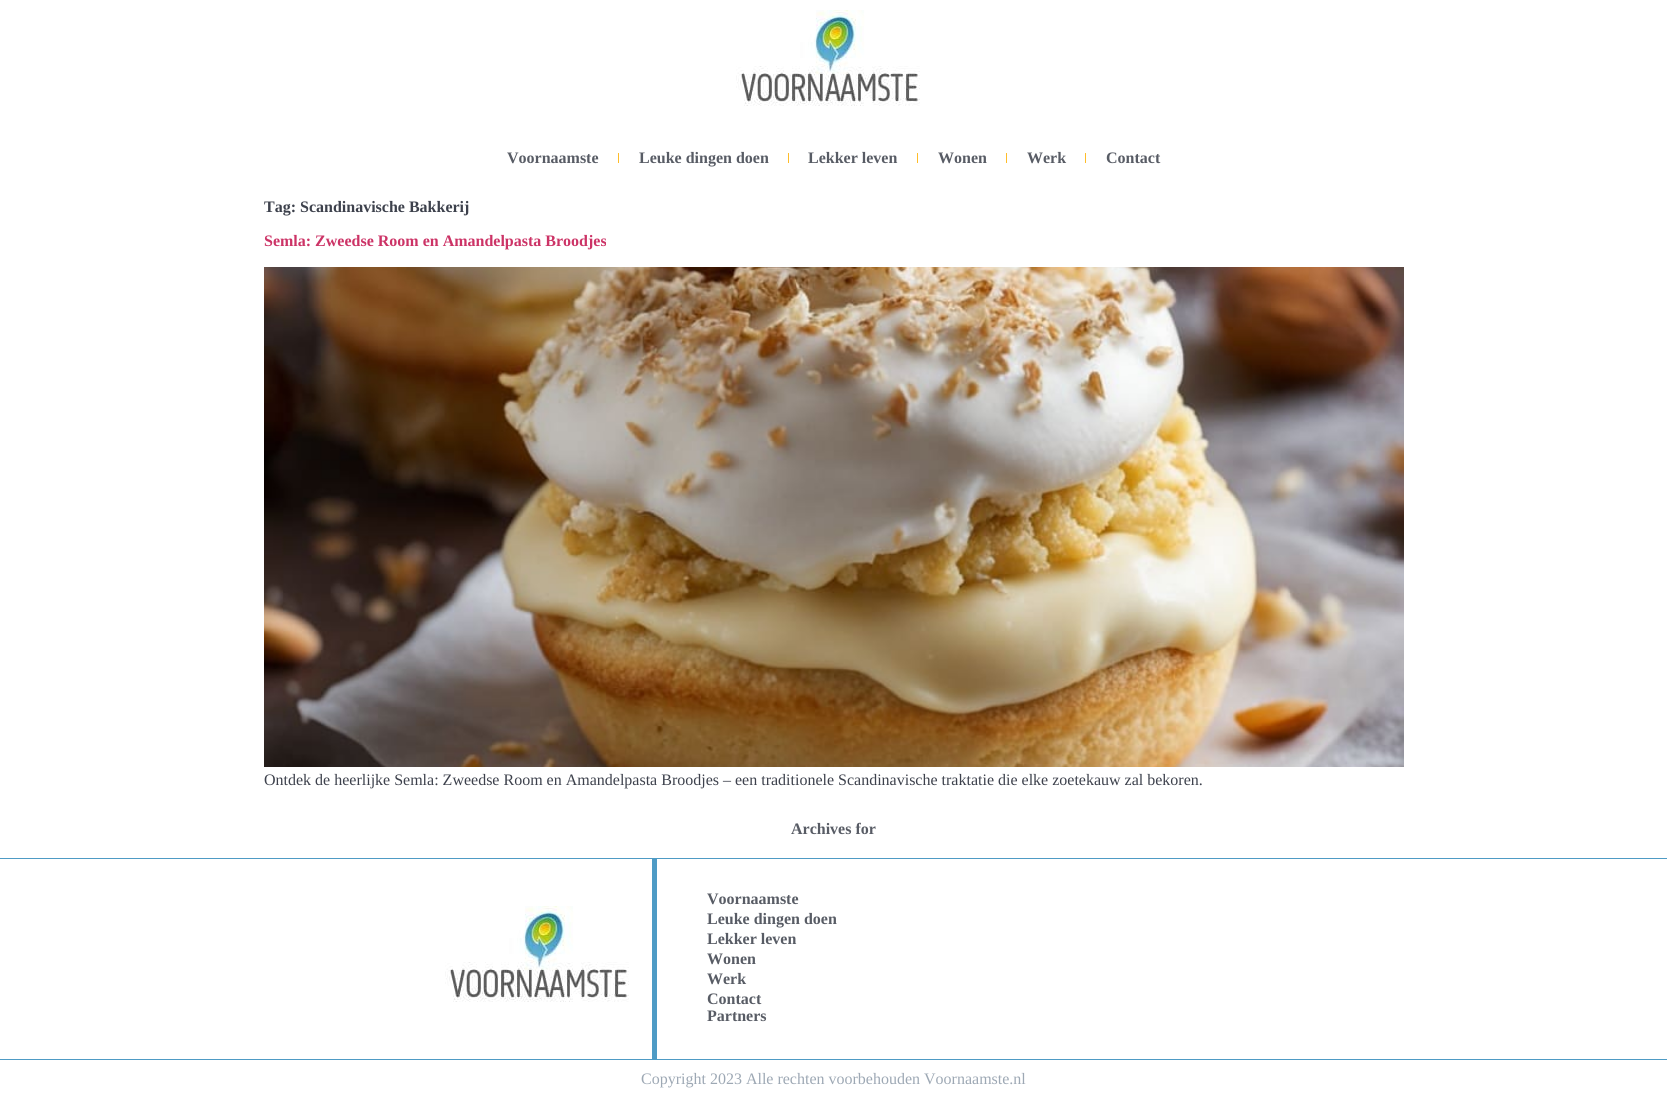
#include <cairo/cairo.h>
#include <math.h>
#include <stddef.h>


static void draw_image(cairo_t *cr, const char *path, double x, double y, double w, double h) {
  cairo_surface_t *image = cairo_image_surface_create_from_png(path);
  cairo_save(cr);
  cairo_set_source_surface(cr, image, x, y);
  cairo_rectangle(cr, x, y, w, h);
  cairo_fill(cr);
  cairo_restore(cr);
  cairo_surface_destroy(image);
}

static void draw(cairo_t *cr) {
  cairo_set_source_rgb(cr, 1, 1, 1);
  cairo_paint(cr);
  draw_image(cr, "images/1.png", 736, 10, 184, 96);
  cairo_set_source_rgb(cr, 1, 189 / 255.0, 42 / 255.0);
  cairo_rectangle(cr, 618, 153, 1, 10);
  cairo_fill(cr);
  cairo_rectangle(cr, 788, 153, 1, 10);
  cairo_fill(cr);
  cairo_rectangle(cr, 917, 153, 1, 10);
  cairo_fill(cr);
  cairo_rectangle(cr, 1006, 153, 1, 10);
  cairo_fill(cr);
  cairo_rectangle(cr, 1085, 153, 1, 10);
  cairo_fill(cr);
  draw_image(cr, "images/2.png", 264, 267, 1140, 500);
  cairo_set_source_rgb(cr, 78 / 255.0, 155 / 255.0, 197 / 255.0);
  cairo_rectangle(cr, 0, 858, 1667, 1);
  cairo_fill(cr);
  draw_image(cr, "images/1.png", 445, 906, 184, 96);
  cairo_rectangle(cr, 652, 859, 5, 200);
  cairo_fill(cr);
  cairo_rectangle(cr, 0, 1059, 1667, 1);
  cairo_fill(cr);
  cairo_select_font_face(cr, "Liberation Serif", CAIRO_FONT_SLANT_NORMAL, CAIRO_FONT_WEIGHT_BOLD);
  cairo_set_font_size(cr, 16);
  cairo_set_source_rgb(cr, 88 / 255.0, 92 / 255.0, 101 / 255.0);
  cairo_move_to(cr, 507, 163);
  cairo_show_text(cr, "Voornaamste");
  cairo_move_to(cr, 639, 163);
  cairo_show_text(cr, "Leuke dingen doen");
  cairo_move_to(cr, 808, 163);
  cairo_show_text(cr, "Lekker leven");
  cairo_move_to(cr, 938, 163);
  cairo_show_text(cr, "Wonen");
  cairo_move_to(cr, 1027, 163);
  cairo_show_text(cr, "Werk");
  cairo_move_to(cr, 1106, 163);
  cairo_show_text(cr, "Contact");
  cairo_set_source_rgb(cr, 61 / 255.0, 65 / 255.0, 76 / 255.0);
  cairo_move_to(cr, 264, 212);
  cairo_show_text(cr, "Tag: Scandinavische Bakkerij");
  cairo_set_source_rgb(cr, 204 / 255.0, 51 / 255.0, 102 / 255.0);
  cairo_move_to(cr, 264, 246);
  cairo_show_text(cr, "Semla: Zweedse Room en Amandelpasta Broodjes");
  cairo_select_font_face(cr, "Liberation Serif", CAIRO_FONT_SLANT_NORMAL, CAIRO_FONT_WEIGHT_NORMAL);
  cairo_set_source_rgb(cr, 61 / 255.0, 65 / 255.0, 76 / 255.0);
  cairo_move_to(cr, 264, 785);
  cairo_show_text(cr, "Ontdek de heerlijke Semla: Zweedse Room en Amandelpasta Broodjes – een traditionele Scandinavische traktatie die elke zoetekauw zal bekoren.");
  cairo_select_font_face(cr, "Liberation Serif", CAIRO_FONT_SLANT_NORMAL, CAIRO_FONT_WEIGHT_BOLD);
  cairo_set_source_rgb(cr, 88 / 255.0, 92 / 255.0, 101 / 255.0);
  cairo_move_to(cr, 791, 834);
  cairo_show_text(cr, "Archives for");
  cairo_move_to(cr, 707, 904);
  cairo_show_text(cr, "Voornaamste");
  cairo_move_to(cr, 707, 924);
  cairo_show_text(cr, "Leuke dingen doen");
  cairo_move_to(cr, 707, 944);
  cairo_show_text(cr, "Lekker leven");
  cairo_move_to(cr, 707, 964);
  cairo_show_text(cr, "Wonen");
  cairo_move_to(cr, 707, 984);
  cairo_show_text(cr, "Werk");
  cairo_move_to(cr, 707, 1004);
  cairo_show_text(cr, "Contact");
  cairo_move_to(cr, 707, 1021);
  cairo_show_text(cr, "Partners");
  cairo_select_font_face(cr, "Liberation Serif", CAIRO_FONT_SLANT_NORMAL, CAIRO_FONT_WEIGHT_NORMAL);
  cairo_set_source_rgb(cr, 157 / 255.0, 168 / 255.0, 180 / 255.0);
  cairo_move_to(cr, 641, 1084);
  cairo_show_text(cr, "Copyright 2023 Alle rechten voorbehouden Voornaamste.nl");
}

int main(void) {
  cairo_surface_t *surface = cairo_image_surface_create(CAIRO_FORMAT_RGB24, 1667, 1120);
  cairo_t *cr = cairo_create(surface);
  cairo_font_options_t *options = cairo_font_options_create();
  cairo_font_options_set_hint_metrics(options, CAIRO_HINT_METRICS_OFF);
  cairo_font_options_set_hint_style(options, CAIRO_HINT_STYLE_NONE);
  cairo_set_font_options(cr, options);
  cairo_set_miter_limit(cr, 4);
  draw(cr);
  cairo_surface_write_to_png(surface, "out.png");
  cairo_font_options_destroy(options);
  cairo_destroy(cr);
  cairo_surface_destroy(surface);
  return 0;
}
